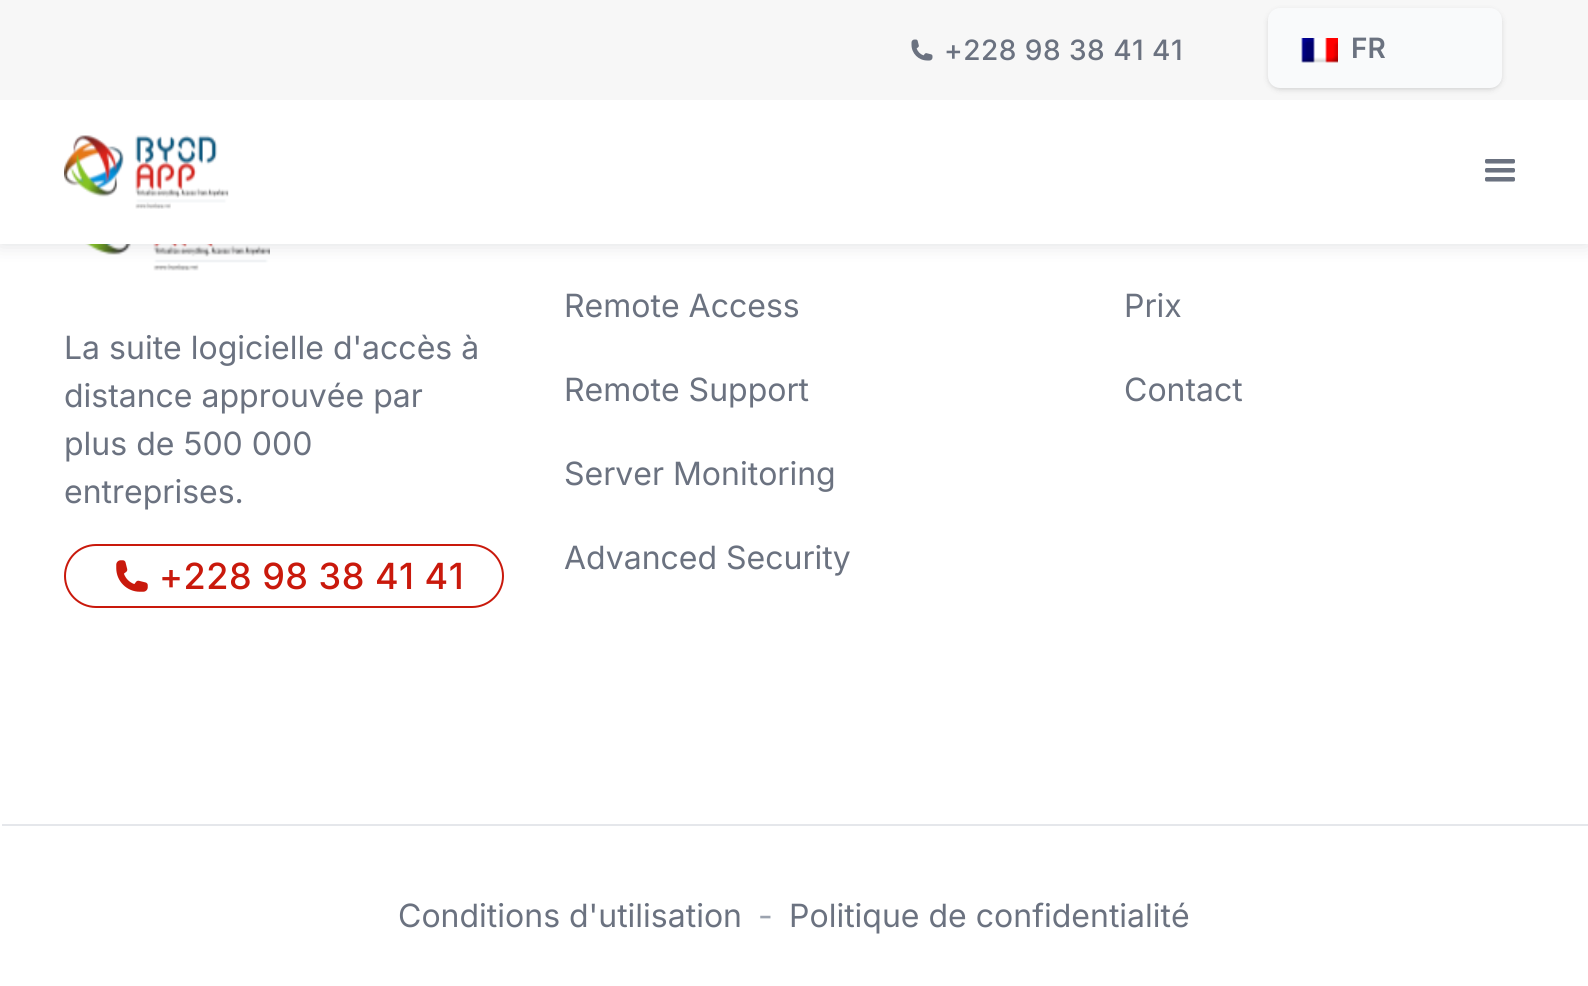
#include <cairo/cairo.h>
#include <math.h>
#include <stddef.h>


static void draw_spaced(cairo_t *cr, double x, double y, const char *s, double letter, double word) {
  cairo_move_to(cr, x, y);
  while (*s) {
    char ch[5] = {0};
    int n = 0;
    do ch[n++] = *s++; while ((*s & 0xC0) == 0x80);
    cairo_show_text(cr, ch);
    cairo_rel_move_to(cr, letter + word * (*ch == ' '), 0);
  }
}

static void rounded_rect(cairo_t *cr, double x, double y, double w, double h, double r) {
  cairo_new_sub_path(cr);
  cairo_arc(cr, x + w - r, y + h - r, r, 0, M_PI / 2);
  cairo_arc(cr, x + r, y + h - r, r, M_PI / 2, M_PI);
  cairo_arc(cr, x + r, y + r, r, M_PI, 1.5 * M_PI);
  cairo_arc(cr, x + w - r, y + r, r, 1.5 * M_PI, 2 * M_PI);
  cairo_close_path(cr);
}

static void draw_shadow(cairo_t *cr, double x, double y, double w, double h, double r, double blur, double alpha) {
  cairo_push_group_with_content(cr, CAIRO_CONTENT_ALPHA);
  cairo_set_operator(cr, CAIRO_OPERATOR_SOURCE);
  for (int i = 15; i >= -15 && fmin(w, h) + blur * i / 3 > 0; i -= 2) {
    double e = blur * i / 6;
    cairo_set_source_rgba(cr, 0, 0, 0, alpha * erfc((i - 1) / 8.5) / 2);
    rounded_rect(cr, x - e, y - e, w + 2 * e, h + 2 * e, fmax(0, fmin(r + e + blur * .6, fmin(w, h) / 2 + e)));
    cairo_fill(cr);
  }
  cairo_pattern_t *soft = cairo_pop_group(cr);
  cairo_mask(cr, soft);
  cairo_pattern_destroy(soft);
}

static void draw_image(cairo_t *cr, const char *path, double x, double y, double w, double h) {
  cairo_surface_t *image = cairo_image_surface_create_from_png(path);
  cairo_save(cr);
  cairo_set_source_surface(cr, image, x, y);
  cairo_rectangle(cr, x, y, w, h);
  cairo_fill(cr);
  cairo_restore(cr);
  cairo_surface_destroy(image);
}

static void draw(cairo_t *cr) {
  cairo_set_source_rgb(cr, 1, 1, 1);
  cairo_paint(cr);
  draw_image(cr, "images/5.png", 85, 244, 185, 27);
  cairo_set_source_rgb(cr, 31 / 255.0, 41 / 255.0, 55 / 255.0);
  draw_shadow(cr, 0, 0, 1588, 244, 0, 10, 0.15);
  cairo_set_source_rgb(cr, 1, 1, 1);
  cairo_rectangle(cr, 0, 100, 1588, 144);
  cairo_fill(cr);
  cairo_set_source_rgb(cr, 247 / 255.0, 247 / 255.0, 247 / 255.0);
  cairo_rectangle(cr, 0, 0, 1588, 100);
  cairo_fill(cr);
  draw_image(cr, "images/1.png", 911, 39, 22, 22);
  cairo_set_source_rgb(cr, 0, 0, 0);
  draw_shadow(cr, 1268, 10, 234, 80, 12, 3, 0.1);
  draw_shadow(cr, 1270, 12, 230, 76, 10, 2, 0.1);
  cairo_set_source_rgb(cr, 249 / 255.0, 250 / 255.0, 251 / 255.0);
  rounded_rect(cr, 1268, 8, 234, 80, 12);
  cairo_fill(cr);
  draw_image(cr, "images/2.png", 1301, 38, 37, 25);
  draw_image(cr, "images/3.png", 64, 135, 165, 74);
  draw_image(cr, "images/4.png", 1485, 159, 30, 23);
  rounded_rect(cr, 65, 545, 438, 62, 31);
  cairo_set_source_rgb(cr, 201 / 255.0, 25 / 255.0, 12 / 255.0);
  cairo_stroke(cr);
  draw_image(cr, "images/6.png", 116, 560, 32, 32);
  cairo_set_source_rgb(cr, 229 / 255.0, 231 / 255.0, 235 / 255.0);
  cairo_rectangle(cr, 2, 824, 1586, 2);
  cairo_fill(cr);
  cairo_select_font_face(cr, "Inter Medium", CAIRO_FONT_SLANT_NORMAL, CAIRO_FONT_WEIGHT_NORMAL);
  cairo_set_font_size(cr, 28);
  cairo_set_source_rgb(cr, 107 / 255.0, 114 / 255.0, 128 / 255.0);
  draw_spaced(cr, 944, 60, "+228 98 38 41 41", 0.5, 0);
  cairo_select_font_face(cr, "Inter SemiBold", CAIRO_FONT_SLANT_NORMAL, CAIRO_FONT_WEIGHT_NORMAL);
  cairo_move_to(cr, 1351, 58);
  cairo_show_text(cr, "FR");
  cairo_select_font_face(cr, "Inter", CAIRO_FONT_SLANT_NORMAL, CAIRO_FONT_WEIGHT_NORMAL);
  cairo_set_font_size(cr, 32);
  cairo_move_to(cr, 64, 359);
  cairo_show_text(cr, "La suite logicielle d'accès à");
  cairo_move_to(cr, 64, 407);
  cairo_show_text(cr, "distance approuvée par");
  cairo_move_to(cr, 64, 455);
  cairo_show_text(cr, "plus de 500 000");
  cairo_move_to(cr, 64, 503);
  cairo_show_text(cr, "entreprises.");
  cairo_select_font_face(cr, "Inter Medium", CAIRO_FONT_SLANT_NORMAL, CAIRO_FONT_WEIGHT_NORMAL);
  cairo_set_font_size(cr, 36);
  cairo_set_source_rgb(cr, 201 / 255.0, 25 / 255.0, 12 / 255.0);
  draw_spaced(cr, 159, 589, "+228 98 38 41 41", 0.5, 0);
  cairo_select_font_face(cr, "Inter", CAIRO_FONT_SLANT_NORMAL, CAIRO_FONT_WEIGHT_NORMAL);
  cairo_set_font_size(cr, 32);
  cairo_set_source_rgb(cr, 107 / 255.0, 114 / 255.0, 128 / 255.0);
  cairo_move_to(cr, 564, 317);
  cairo_show_text(cr, "Remote Access");
  cairo_move_to(cr, 564, 401);
  cairo_show_text(cr, "Remote Support");
  cairo_move_to(cr, 564, 485);
  cairo_show_text(cr, "Server Monitoring");
  cairo_move_to(cr, 564, 569);
  cairo_show_text(cr, "Advanced Security");
  cairo_move_to(cr, 1124, 317);
  cairo_show_text(cr, "Prix");
  cairo_move_to(cr, 1124, 401);
  cairo_show_text(cr, "Contact");
  cairo_move_to(cr, 398, 927);
  cairo_show_text(cr, "Conditions d'utilisation");
  cairo_set_source_rgb(cr, 156 / 255.0, 163 / 255.0, 175 / 255.0);
  cairo_move_to(cr, 758, 927);
  cairo_show_text(cr, "-");
  cairo_set_source_rgb(cr, 107 / 255.0, 114 / 255.0, 128 / 255.0);
  cairo_move_to(cr, 789, 927);
  cairo_show_text(cr, "Politique de confidentialité");
}

int main(void) {
  cairo_surface_t *surface = cairo_image_surface_create(CAIRO_FORMAT_RGB24, 1588, 986);
  cairo_t *cr = cairo_create(surface);
  cairo_font_options_t *options = cairo_font_options_create();
  cairo_font_options_set_hint_metrics(options, CAIRO_HINT_METRICS_OFF);
  cairo_font_options_set_hint_style(options, CAIRO_HINT_STYLE_NONE);
  cairo_set_font_options(cr, options);
  cairo_set_miter_limit(cr, 4);
  draw(cr);
  cairo_surface_write_to_png(surface, "out.png");
  cairo_font_options_destroy(options);
  cairo_destroy(cr);
  cairo_surface_destroy(surface);
  return 0;
}
